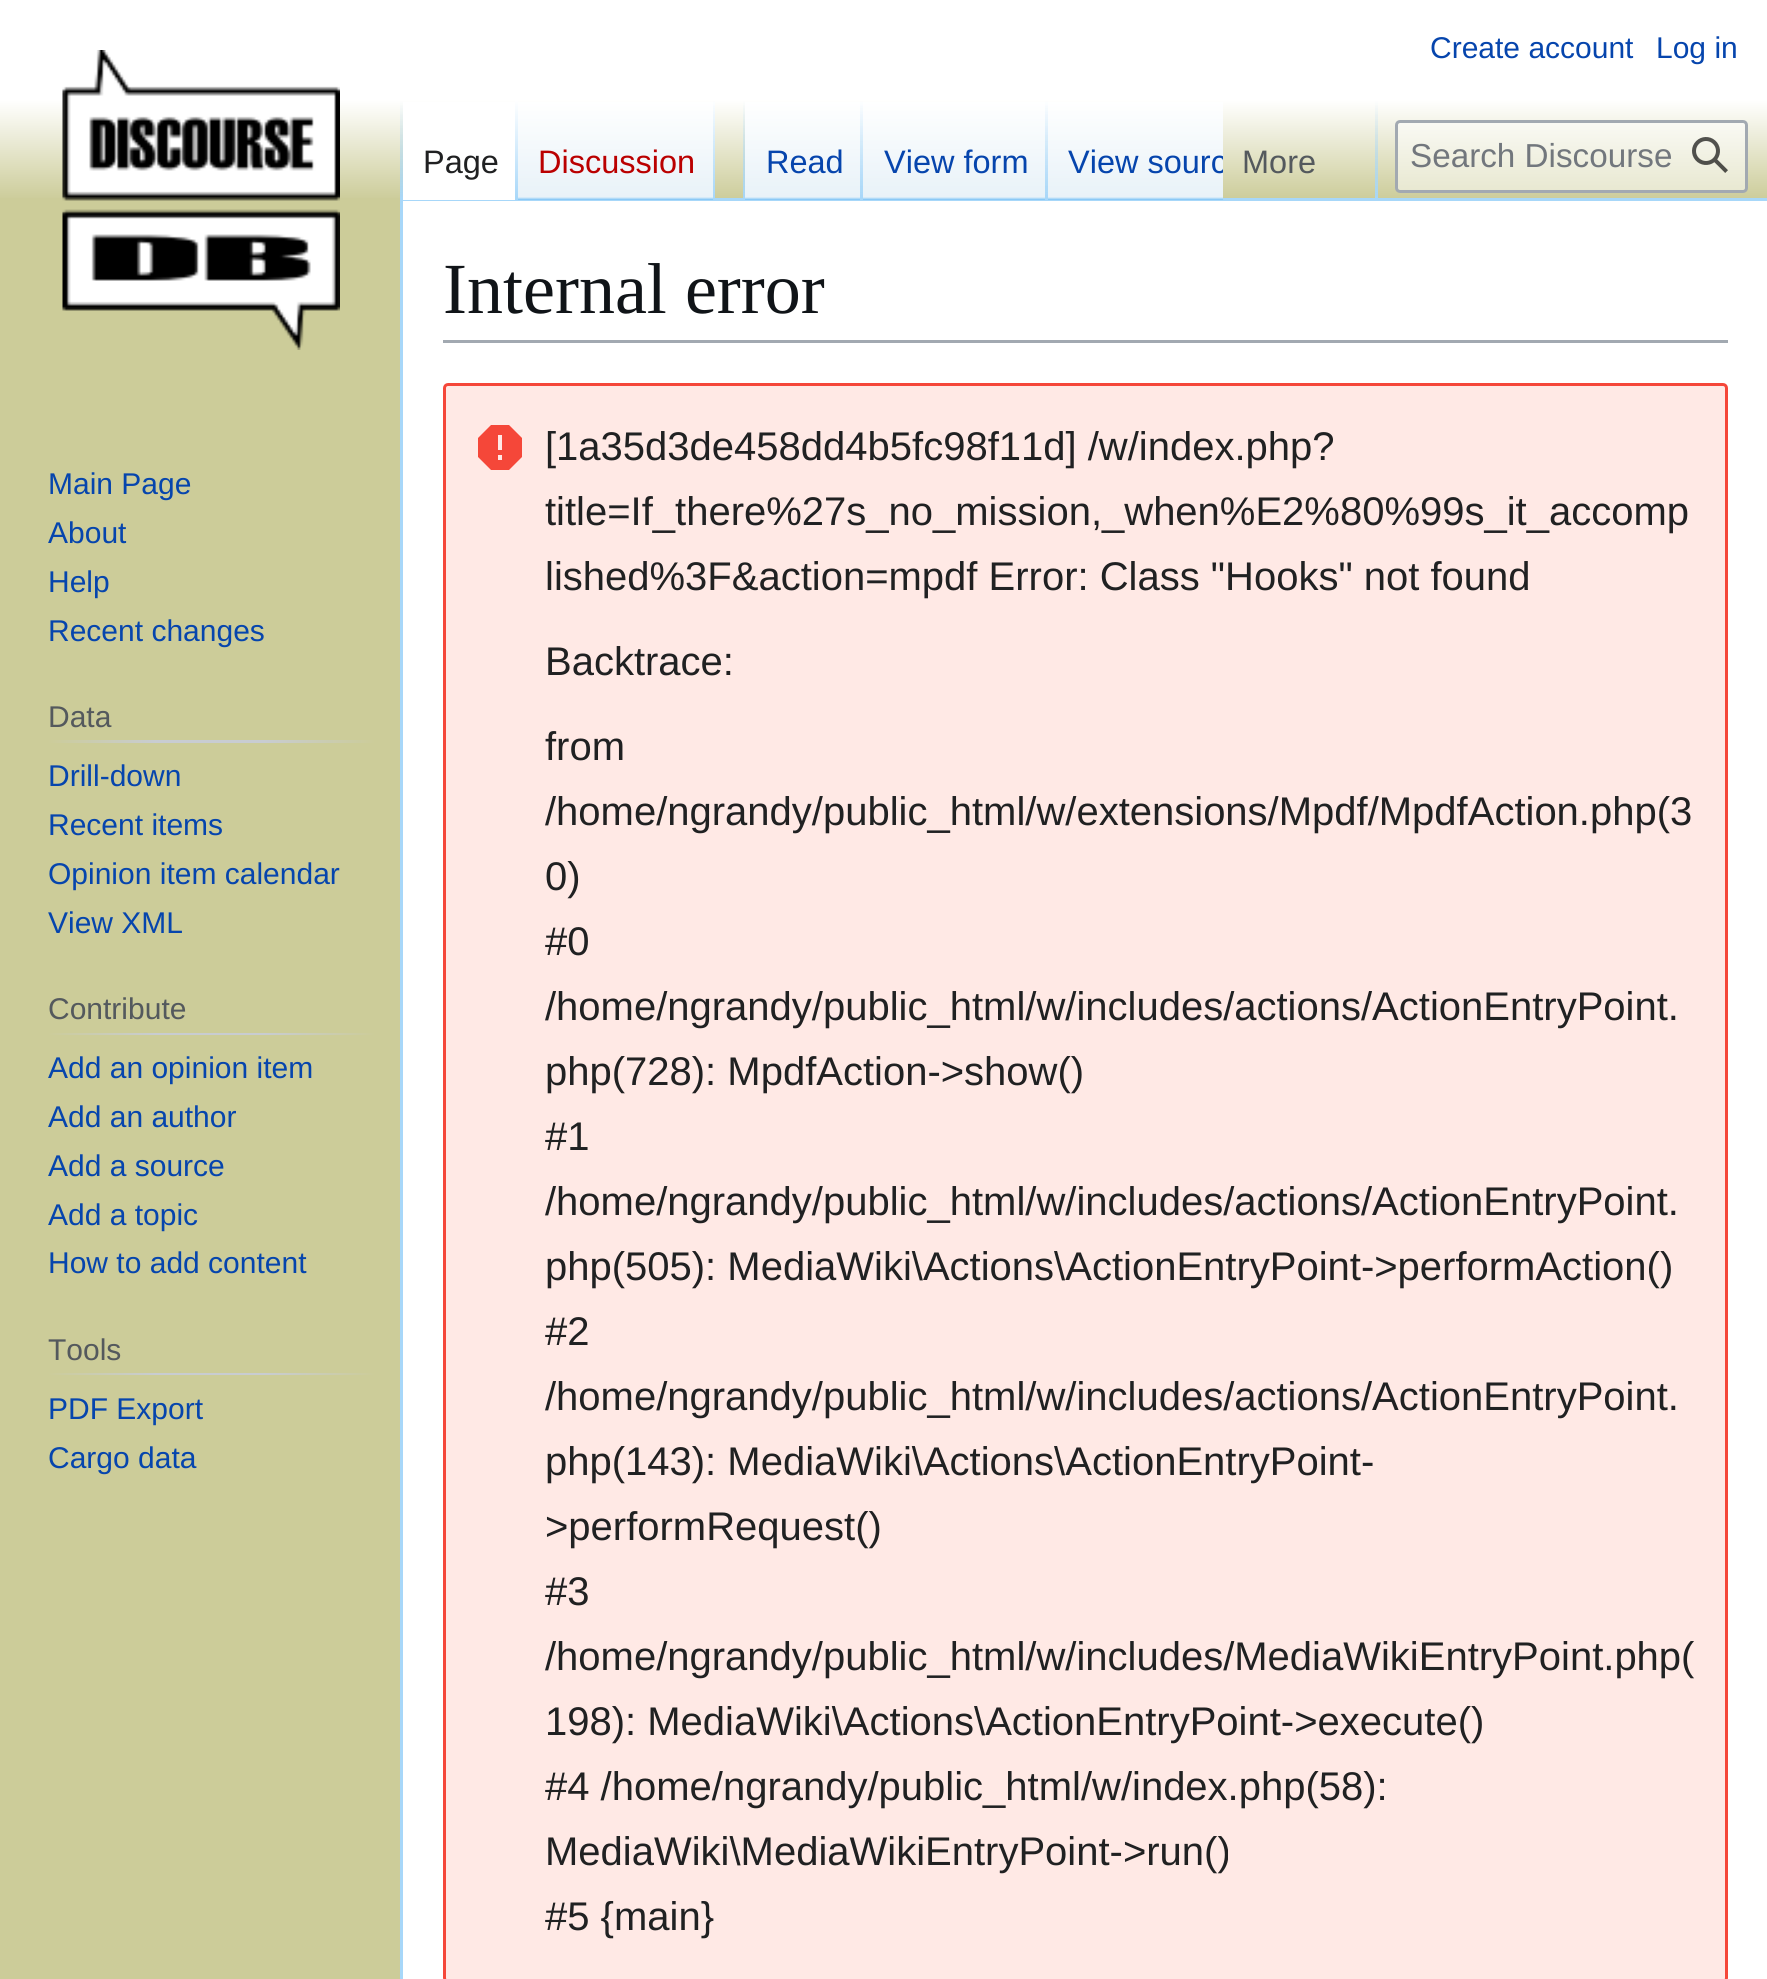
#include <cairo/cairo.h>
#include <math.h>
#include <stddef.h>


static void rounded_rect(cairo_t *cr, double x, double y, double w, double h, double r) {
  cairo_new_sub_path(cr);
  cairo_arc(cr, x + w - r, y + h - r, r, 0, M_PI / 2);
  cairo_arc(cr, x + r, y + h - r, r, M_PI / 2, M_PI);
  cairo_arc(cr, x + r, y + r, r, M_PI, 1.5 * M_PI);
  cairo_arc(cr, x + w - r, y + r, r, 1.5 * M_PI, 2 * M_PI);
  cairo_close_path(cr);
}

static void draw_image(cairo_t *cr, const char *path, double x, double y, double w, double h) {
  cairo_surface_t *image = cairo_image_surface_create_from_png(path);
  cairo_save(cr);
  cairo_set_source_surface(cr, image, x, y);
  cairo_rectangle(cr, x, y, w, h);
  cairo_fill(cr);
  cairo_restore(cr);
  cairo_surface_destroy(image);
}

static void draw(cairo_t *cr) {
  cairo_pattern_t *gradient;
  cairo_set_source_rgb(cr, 204 / 255.0, 204 / 255.0, 153 / 255.0);
  cairo_paint(cr);
  gradient = cairo_pattern_create_linear(884, 0, 884, 200);
  cairo_pattern_add_color_stop_rgba(gradient, 0.5, 1, 1, 1, 1);
  cairo_pattern_add_color_stop_rgba(gradient, 1, 204 / 255.0, 204 / 255.0, 153 / 255.0, 1);
  cairo_set_source(cr, gradient);
  cairo_pattern_destroy(gradient);
  cairo_rectangle(cr, 0, 0, 1767, 198);
  cairo_fill(cr);
  cairo_set_source_rgb(cr, 167 / 255.0, 215 / 255.0, 249 / 255.0);
  cairo_rectangle(cr, 400, 198, 1367, 3);
  cairo_fill(cr);
  cairo_rectangle(cr, 400, 198, 3, 1781);
  cairo_fill(cr);
  gradient = cairo_pattern_create_linear(401, 100, 401, 200);
  cairo_pattern_add_color_stop_rgba(gradient, 0, 167 / 255.0, 215 / 255.0, 249 / 255.0, 0);
  cairo_pattern_add_color_stop_rgba(gradient, 1, 167 / 255.0, 215 / 255.0, 249 / 255.0, 1);
  cairo_set_source(cr, gradient);
  cairo_pattern_destroy(gradient);
  cairo_rectangle(cr, 400, 100, 3, 100);
  cairo_fill(cr);
  cairo_set_source_rgb(cr, 1, 1, 1);
  cairo_rectangle(cr, 403, 102, 112, 98);
  cairo_fill(cr);
  gradient = cairo_pattern_create_linear(516, 100, 516, 200);
  cairo_pattern_add_color_stop_rgba(gradient, 0, 1, 1, 1, 1);
  cairo_pattern_add_color_stop_rgba(gradient, 1, 167 / 255.0, 215 / 255.0, 249 / 255.0, 1);
  cairo_set_source(cr, gradient);
  cairo_pattern_destroy(gradient);
  cairo_rectangle(cr, 515, 100, 3, 100);
  cairo_fill(cr);
  gradient = cairo_pattern_create_linear(616, 200, 616, 100);
  cairo_pattern_add_color_stop_rgba(gradient, 0, 119 / 255.0, 193 / 255.0, 246 / 255.0, 1);
  cairo_pattern_add_color_stop_rgba(gradient, 0.03, 232 / 255.0, 242 / 255.0, 248 / 255.0, 1);
  cairo_pattern_add_color_stop_rgba(gradient, 1, 1, 1, 1, 1);
  cairo_set_source(cr, gradient);
  cairo_pattern_destroy(gradient);
  cairo_rectangle(cr, 518, 102, 197, 98);
  cairo_fill(cr);
  gradient = cairo_pattern_create_linear(714, 100, 714, 200);
  cairo_pattern_add_color_stop_rgba(gradient, 0, 167 / 255.0, 215 / 255.0, 249 / 255.0, 0);
  cairo_pattern_add_color_stop_rgba(gradient, 1, 167 / 255.0, 215 / 255.0, 249 / 255.0, 1);
  cairo_set_source(cr, gradient);
  cairo_pattern_destroy(gradient);
  cairo_rectangle(cr, 713, 100, 2, 100);
  cairo_fill(cr);
  gradient = cairo_pattern_create_linear(744, 100, 744, 200);
  cairo_pattern_add_color_stop_rgba(gradient, 0, 167 / 255.0, 215 / 255.0, 249 / 255.0, 0);
  cairo_pattern_add_color_stop_rgba(gradient, 1, 167 / 255.0, 215 / 255.0, 249 / 255.0, 1);
  cairo_set_source(cr, gradient);
  cairo_pattern_destroy(gradient);
  cairo_rectangle(cr, 743, 100, 2, 100);
  cairo_fill(cr);
  gradient = cairo_pattern_create_linear(804, 200, 804, 100);
  cairo_pattern_add_color_stop_rgba(gradient, 0, 119 / 255.0, 193 / 255.0, 246 / 255.0, 1);
  cairo_pattern_add_color_stop_rgba(gradient, 0.03, 232 / 255.0, 242 / 255.0, 248 / 255.0, 1);
  cairo_pattern_add_color_stop_rgba(gradient, 1, 1, 1, 1, 1);
  cairo_set_source(cr, gradient);
  cairo_pattern_destroy(gradient);
  cairo_rectangle(cr, 745, 102, 118, 98);
  cairo_fill(cr);
  gradient = cairo_pattern_create_linear(861, 100, 861, 200);
  cairo_pattern_add_color_stop_rgba(gradient, 0, 167 / 255.0, 215 / 255.0, 249 / 255.0, 0);
  cairo_pattern_add_color_stop_rgba(gradient, 1, 167 / 255.0, 215 / 255.0, 249 / 255.0, 1);
  cairo_set_source(cr, gradient);
  cairo_pattern_destroy(gradient);
  cairo_rectangle(cr, 860, 100, 3, 100);
  cairo_fill(cr);
  gradient = cairo_pattern_create_linear(955, 200, 955, 100);
  cairo_pattern_add_color_stop_rgba(gradient, 0, 119 / 255.0, 193 / 255.0, 246 / 255.0, 1);
  cairo_pattern_add_color_stop_rgba(gradient, 0.03, 232 / 255.0, 242 / 255.0, 248 / 255.0, 1);
  cairo_pattern_add_color_stop_rgba(gradient, 1, 1, 1, 1, 1);
  cairo_set_source(cr, gradient);
  cairo_pattern_destroy(gradient);
  cairo_rectangle(cr, 863, 102, 185, 98);
  cairo_fill(cr);
  gradient = cairo_pattern_create_linear(1046, 100, 1046, 200);
  cairo_pattern_add_color_stop_rgba(gradient, 0, 167 / 255.0, 215 / 255.0, 249 / 255.0, 0);
  cairo_pattern_add_color_stop_rgba(gradient, 1, 167 / 255.0, 215 / 255.0, 249 / 255.0, 1);
  cairo_set_source(cr, gradient);
  cairo_pattern_destroy(gradient);
  cairo_rectangle(cr, 1045, 100, 3, 100);
  cairo_fill(cr);
  gradient = cairo_pattern_create_linear(1135, 200, 1135, 100);
  cairo_pattern_add_color_stop_rgba(gradient, 0, 119 / 255.0, 193 / 255.0, 246 / 255.0, 1);
  cairo_pattern_add_color_stop_rgba(gradient, 0.03, 232 / 255.0, 242 / 255.0, 248 / 255.0, 1);
  cairo_pattern_add_color_stop_rgba(gradient, 1, 1, 1, 1, 1);
  cairo_set_source(cr, gradient);
  cairo_pattern_destroy(gradient);
  cairo_rectangle(cr, 1048, 102, 175, 98);
  cairo_fill(cr);
  gradient = cairo_pattern_create_linear(1376, 100, 1376, 200);
  cairo_pattern_add_color_stop_rgba(gradient, 0, 167 / 255.0, 215 / 255.0, 249 / 255.0, 0);
  cairo_pattern_add_color_stop_rgba(gradient, 1, 167 / 255.0, 215 / 255.0, 249 / 255.0, 1);
  cairo_set_source(cr, gradient);
  cairo_pattern_destroy(gradient);
  cairo_rectangle(cr, 1375, 100, 3, 100);
  cairo_fill(cr);
  cairo_set_source_rgba(cr, 1, 1, 1, 0.5);
  rounded_rect(cr, 1396.5, 121.5, 350, 70, 3.5);
  cairo_fill_preserve(cr);
  cairo_set_source_rgb(cr, 162 / 255.0, 169 / 255.0, 177 / 255.0);
  cairo_set_line_width(cr, 3);
  cairo_stroke(cr);
  draw_image(cr, "images/1.png", 1692, 137, 36, 36);
  draw_image(cr, "images/2.png", 62, 50, 278, 300);
  gradient = cairo_pattern_create_linear(48, 741, 375, 741);
  cairo_pattern_add_color_stop_rgba(gradient, 0, 204 / 255.0, 204 / 255.0, 153 / 255.0, 1);
  cairo_pattern_add_color_stop_rgba(gradient, 0.33, 200 / 255.0, 204 / 255.0, 209 / 255.0, 1);
  cairo_pattern_add_color_stop_rgba(gradient, 0.66, 200 / 255.0, 204 / 255.0, 209 / 255.0, 1);
  cairo_pattern_add_color_stop_rgba(gradient, 1, 204 / 255.0, 204 / 255.0, 153 / 255.0, 1);
  cairo_set_source(cr, gradient);
  cairo_pattern_destroy(gradient);
  cairo_rectangle(cr, 48, 740, 327, 3);
  cairo_fill(cr);
  gradient = cairo_pattern_create_linear(48, 1034, 375, 1034);
  cairo_pattern_add_color_stop_rgba(gradient, 0, 204 / 255.0, 204 / 255.0, 153 / 255.0, 1);
  cairo_pattern_add_color_stop_rgba(gradient, 0.33, 200 / 255.0, 204 / 255.0, 209 / 255.0, 1);
  cairo_pattern_add_color_stop_rgba(gradient, 0.66, 200 / 255.0, 204 / 255.0, 209 / 255.0, 1);
  cairo_pattern_add_color_stop_rgba(gradient, 1, 204 / 255.0, 204 / 255.0, 153 / 255.0, 1);
  cairo_set_source(cr, gradient);
  cairo_pattern_destroy(gradient);
  cairo_rectangle(cr, 48, 1033, 327, 2);
  cairo_fill(cr);
  gradient = cairo_pattern_create_linear(48, 1374, 375, 1374);
  cairo_pattern_add_color_stop_rgba(gradient, 0, 204 / 255.0, 204 / 255.0, 153 / 255.0, 1);
  cairo_pattern_add_color_stop_rgba(gradient, 0.33, 200 / 255.0, 204 / 255.0, 209 / 255.0, 1);
  cairo_pattern_add_color_stop_rgba(gradient, 0.66, 200 / 255.0, 204 / 255.0, 209 / 255.0, 1);
  cairo_pattern_add_color_stop_rgba(gradient, 1, 204 / 255.0, 204 / 255.0, 153 / 255.0, 1);
  cairo_set_source(cr, gradient);
  cairo_pattern_destroy(gradient);
  cairo_rectangle(cr, 48, 1373, 327, 2);
  cairo_fill(cr);
  cairo_set_source_rgb(cr, 1, 1, 1);
  cairo_rectangle(cr, 403, 201, 1364, 1778);
  cairo_fill(cr);
  cairo_set_source_rgb(cr, 162 / 255.0, 169 / 255.0, 177 / 255.0);
  cairo_rectangle(cr, 443, 340, 1285, 3);
  cairo_fill(cr);
  cairo_set_source_rgb(cr, 1, 233 / 255.0, 229 / 255.0);
  rounded_rect(cr, 444.5, 384.5, 1282, 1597, 3.5);
  cairo_fill_preserve(cr);
  cairo_set_source_rgb(cr, 245 / 255.0, 71 / 255.0, 57 / 255.0);
  cairo_stroke(cr);
  cairo_new_path(cr);
  cairo_move_to(cr, 509, 425);
  cairo_line_to(cr, 491, 425);
  cairo_line_to(cr, 478, 438);
  cairo_line_to(cr, 478, 457);
  cairo_line_to(cr, 491, 470);
  cairo_line_to(cr, 509, 470);
  cairo_line_to(cr, 522, 457);
  cairo_line_to(cr, 522, 438);
  cairo_close_path(cr);
  cairo_move_to(cr, 502, 460);
  cairo_line_to(cr, 498, 460);
  cairo_line_to(cr, 498, 455);
  cairo_line_to(cr, 502, 455);
  cairo_close_path(cr);
  cairo_move_to(cr, 502, 450);
  cairo_line_to(cr, 498, 450);
  cairo_line_to(cr, 498, 435);
  cairo_line_to(cr, 502, 435);
  cairo_close_path(cr);
  cairo_fill(cr);
  cairo_select_font_face(cr, "Liberation Sans", CAIRO_FONT_SLANT_NORMAL, CAIRO_FONT_WEIGHT_NORMAL);
  cairo_set_font_size(cr, 30);
  cairo_set_source_rgb(cr, 6 / 255.0, 69 / 255.0, 173 / 255.0);
  cairo_move_to(cr, 1430, 58);
  cairo_show_text(cr, "Create account");
  cairo_move_to(cr, 1656, 58);
  cairo_show_text(cr, "Log in");
  cairo_set_font_size(cr, 32.5);
  cairo_set_source_rgb(cr, 32 / 255.0, 33 / 255.0, 34 / 255.0);
  cairo_move_to(cr, 423, 173);
  cairo_show_text(cr, "Page");
  cairo_set_source_rgb(cr, 186 / 255.0, 0, 0);
  cairo_move_to(cr, 538, 173);
  cairo_show_text(cr, "Discussion");
  cairo_set_source_rgb(cr, 6 / 255.0, 69 / 255.0, 173 / 255.0);
  cairo_move_to(cr, 766, 173);
  cairo_show_text(cr, "Read");
  cairo_move_to(cr, 884, 173);
  cairo_show_text(cr, "View form");
  cairo_save(cr);
  cairo_rectangle(cr, 1048, 100, 175, 100);
  cairo_clip(cr);
  cairo_move_to(cr, 1068, 173);
  cairo_show_text(cr, "View sourc");
  cairo_restore(cr);
  cairo_set_source_rgb(cr, 84 / 255.0, 89 / 255.0, 93 / 255.0);
  cairo_move_to(cr, 1242, 173);
  cairo_show_text(cr, "More");
  cairo_set_font_size(cr, 33.25);
  cairo_set_source_rgb(cr, 114 / 255.0, 119 / 255.0, 125 / 255.0);
  cairo_move_to(cr, 1410, 167);
  cairo_show_text(cr, "Search Discourse");
  cairo_set_font_size(cr, 30);
  cairo_set_source_rgb(cr, 6 / 255.0, 69 / 255.0, 173 / 255.0);
  cairo_move_to(cr, 48, 494);
  cairo_show_text(cr, "Main Page");
  cairo_move_to(cr, 48, 543);
  cairo_show_text(cr, "About");
  cairo_move_to(cr, 48, 592);
  cairo_show_text(cr, "Help");
  cairo_move_to(cr, 48, 641);
  cairo_show_text(cr, "Recent changes");
  cairo_set_source_rgb(cr, 84 / 255.0, 89 / 255.0, 93 / 255.0);
  cairo_move_to(cr, 48, 727);
  cairo_show_text(cr, "Data");
  cairo_set_source_rgb(cr, 6 / 255.0, 69 / 255.0, 173 / 255.0);
  cairo_move_to(cr, 48, 786);
  cairo_show_text(cr, "Drill-down");
  cairo_move_to(cr, 48, 835);
  cairo_show_text(cr, "Recent items");
  cairo_move_to(cr, 48, 884);
  cairo_show_text(cr, "Opinion item calendar");
  cairo_move_to(cr, 48, 933);
  cairo_show_text(cr, "View XML");
  cairo_set_source_rgb(cr, 84 / 255.0, 89 / 255.0, 93 / 255.0);
  cairo_move_to(cr, 48, 1019);
  cairo_show_text(cr, "Contribute");
  cairo_set_source_rgb(cr, 6 / 255.0, 69 / 255.0, 173 / 255.0);
  cairo_move_to(cr, 48, 1078);
  cairo_show_text(cr, "Add an opinion item");
  cairo_move_to(cr, 48, 1127);
  cairo_show_text(cr, "Add an author");
  cairo_move_to(cr, 48, 1176);
  cairo_show_text(cr, "Add a source");
  cairo_move_to(cr, 48, 1225);
  cairo_show_text(cr, "Add a topic");
  cairo_move_to(cr, 48, 1273);
  cairo_show_text(cr, "How to add content");
  cairo_set_source_rgb(cr, 84 / 255.0, 89 / 255.0, 93 / 255.0);
  cairo_move_to(cr, 48, 1360);
  cairo_show_text(cr, "Tools");
  cairo_set_source_rgb(cr, 6 / 255.0, 69 / 255.0, 173 / 255.0);
  cairo_move_to(cr, 48, 1419);
  cairo_show_text(cr, "PDF Export");
  cairo_move_to(cr, 48, 1468);
  cairo_show_text(cr, "Cargo data");
  cairo_select_font_face(cr, "Liberation Serif", CAIRO_FONT_SLANT_NORMAL, CAIRO_FONT_WEIGHT_NORMAL);
  cairo_set_font_size(cr, 72);
  cairo_set_source_rgb(cr, 16 / 255.0, 20 / 255.0, 24 / 255.0);
  cairo_move_to(cr, 443, 313);
  cairo_show_text(cr, "Internal error");
  cairo_select_font_face(cr, "Liberation Sans", CAIRO_FONT_SLANT_NORMAL, CAIRO_FONT_WEIGHT_NORMAL);
  cairo_set_font_size(cr, 40);
  cairo_set_source_rgb(cr, 32 / 255.0, 33 / 255.0, 34 / 255.0);
  cairo_move_to(cr, 545, 460);
  cairo_show_text(cr, "[1a35d3de458dd4b5fc98f11d] /w/index.php?");
  cairo_move_to(cr, 545, 525);
  cairo_show_text(cr, "title=If_there%27s_no_mission,_when%E2%80%99s_it_accomp");
  cairo_move_to(cr, 545, 590);
  cairo_show_text(cr, "lished%3F&action=mpdf Error: Class \"Hooks\" not found");
  cairo_move_to(cr, 545, 675);
  cairo_show_text(cr, "Backtrace:");
  cairo_move_to(cr, 545, 760);
  cairo_show_text(cr, "from");
  cairo_move_to(cr, 545, 825);
  cairo_show_text(cr, "/home/ngrandy/public_html/w/extensions/Mpdf/MpdfAction.php(3");
  cairo_move_to(cr, 545, 890);
  cairo_show_text(cr, "0)");
  cairo_move_to(cr, 545, 955);
  cairo_show_text(cr, "#0");
  cairo_move_to(cr, 545, 1020);
  cairo_show_text(cr, "/home/ngrandy/public_html/w/includes/actions/ActionEntryPoint.");
  cairo_move_to(cr, 545, 1085);
  cairo_show_text(cr, "php(728): MpdfAction->show()");
  cairo_move_to(cr, 545, 1150);
  cairo_show_text(cr, "#1");
  cairo_move_to(cr, 545, 1215);
  cairo_show_text(cr, "/home/ngrandy/public_html/w/includes/actions/ActionEntryPoint.");
  cairo_move_to(cr, 545, 1280);
  cairo_show_text(cr, "php(505): MediaWiki\\Actions\\ActionEntryPoint->performAction()");
  cairo_move_to(cr, 545, 1345);
  cairo_show_text(cr, "#2");
  cairo_move_to(cr, 545, 1410);
  cairo_show_text(cr, "/home/ngrandy/public_html/w/includes/actions/ActionEntryPoint.");
  cairo_move_to(cr, 545, 1475);
  cairo_show_text(cr, "php(143): MediaWiki\\Actions\\ActionEntryPoint-");
  cairo_move_to(cr, 545, 1540);
  cairo_show_text(cr, ">performRequest()");
  cairo_move_to(cr, 545, 1605);
  cairo_show_text(cr, "#3");
  cairo_move_to(cr, 545, 1670);
  cairo_show_text(cr, "/home/ngrandy/public_html/w/includes/MediaWikiEntryPoint.php(");
  cairo_move_to(cr, 545, 1735);
  cairo_show_text(cr, "198): MediaWiki\\Actions\\ActionEntryPoint->execute()");
  cairo_move_to(cr, 545, 1800);
  cairo_show_text(cr, "#4 /home/ngrandy/public_html/w/index.php(58):");
  cairo_move_to(cr, 545, 1865);
  cairo_show_text(cr, "MediaWiki\\MediaWikiEntryPoint->run()");
  cairo_move_to(cr, 545, 1930);
  cairo_show_text(cr, "#5 {main}");
}

int main(void) {
  cairo_surface_t *surface = cairo_image_surface_create(CAIRO_FORMAT_RGB24, 1767, 1979);
  cairo_t *cr = cairo_create(surface);
  cairo_font_options_t *options = cairo_font_options_create();
  cairo_font_options_set_hint_metrics(options, CAIRO_HINT_METRICS_OFF);
  cairo_font_options_set_hint_style(options, CAIRO_HINT_STYLE_NONE);
  cairo_set_font_options(cr, options);
  cairo_set_miter_limit(cr, 4);
  draw(cr);
  cairo_surface_write_to_png(surface, "out.png");
  cairo_font_options_destroy(options);
  cairo_destroy(cr);
  cairo_surface_destroy(surface);
  return 0;
}
